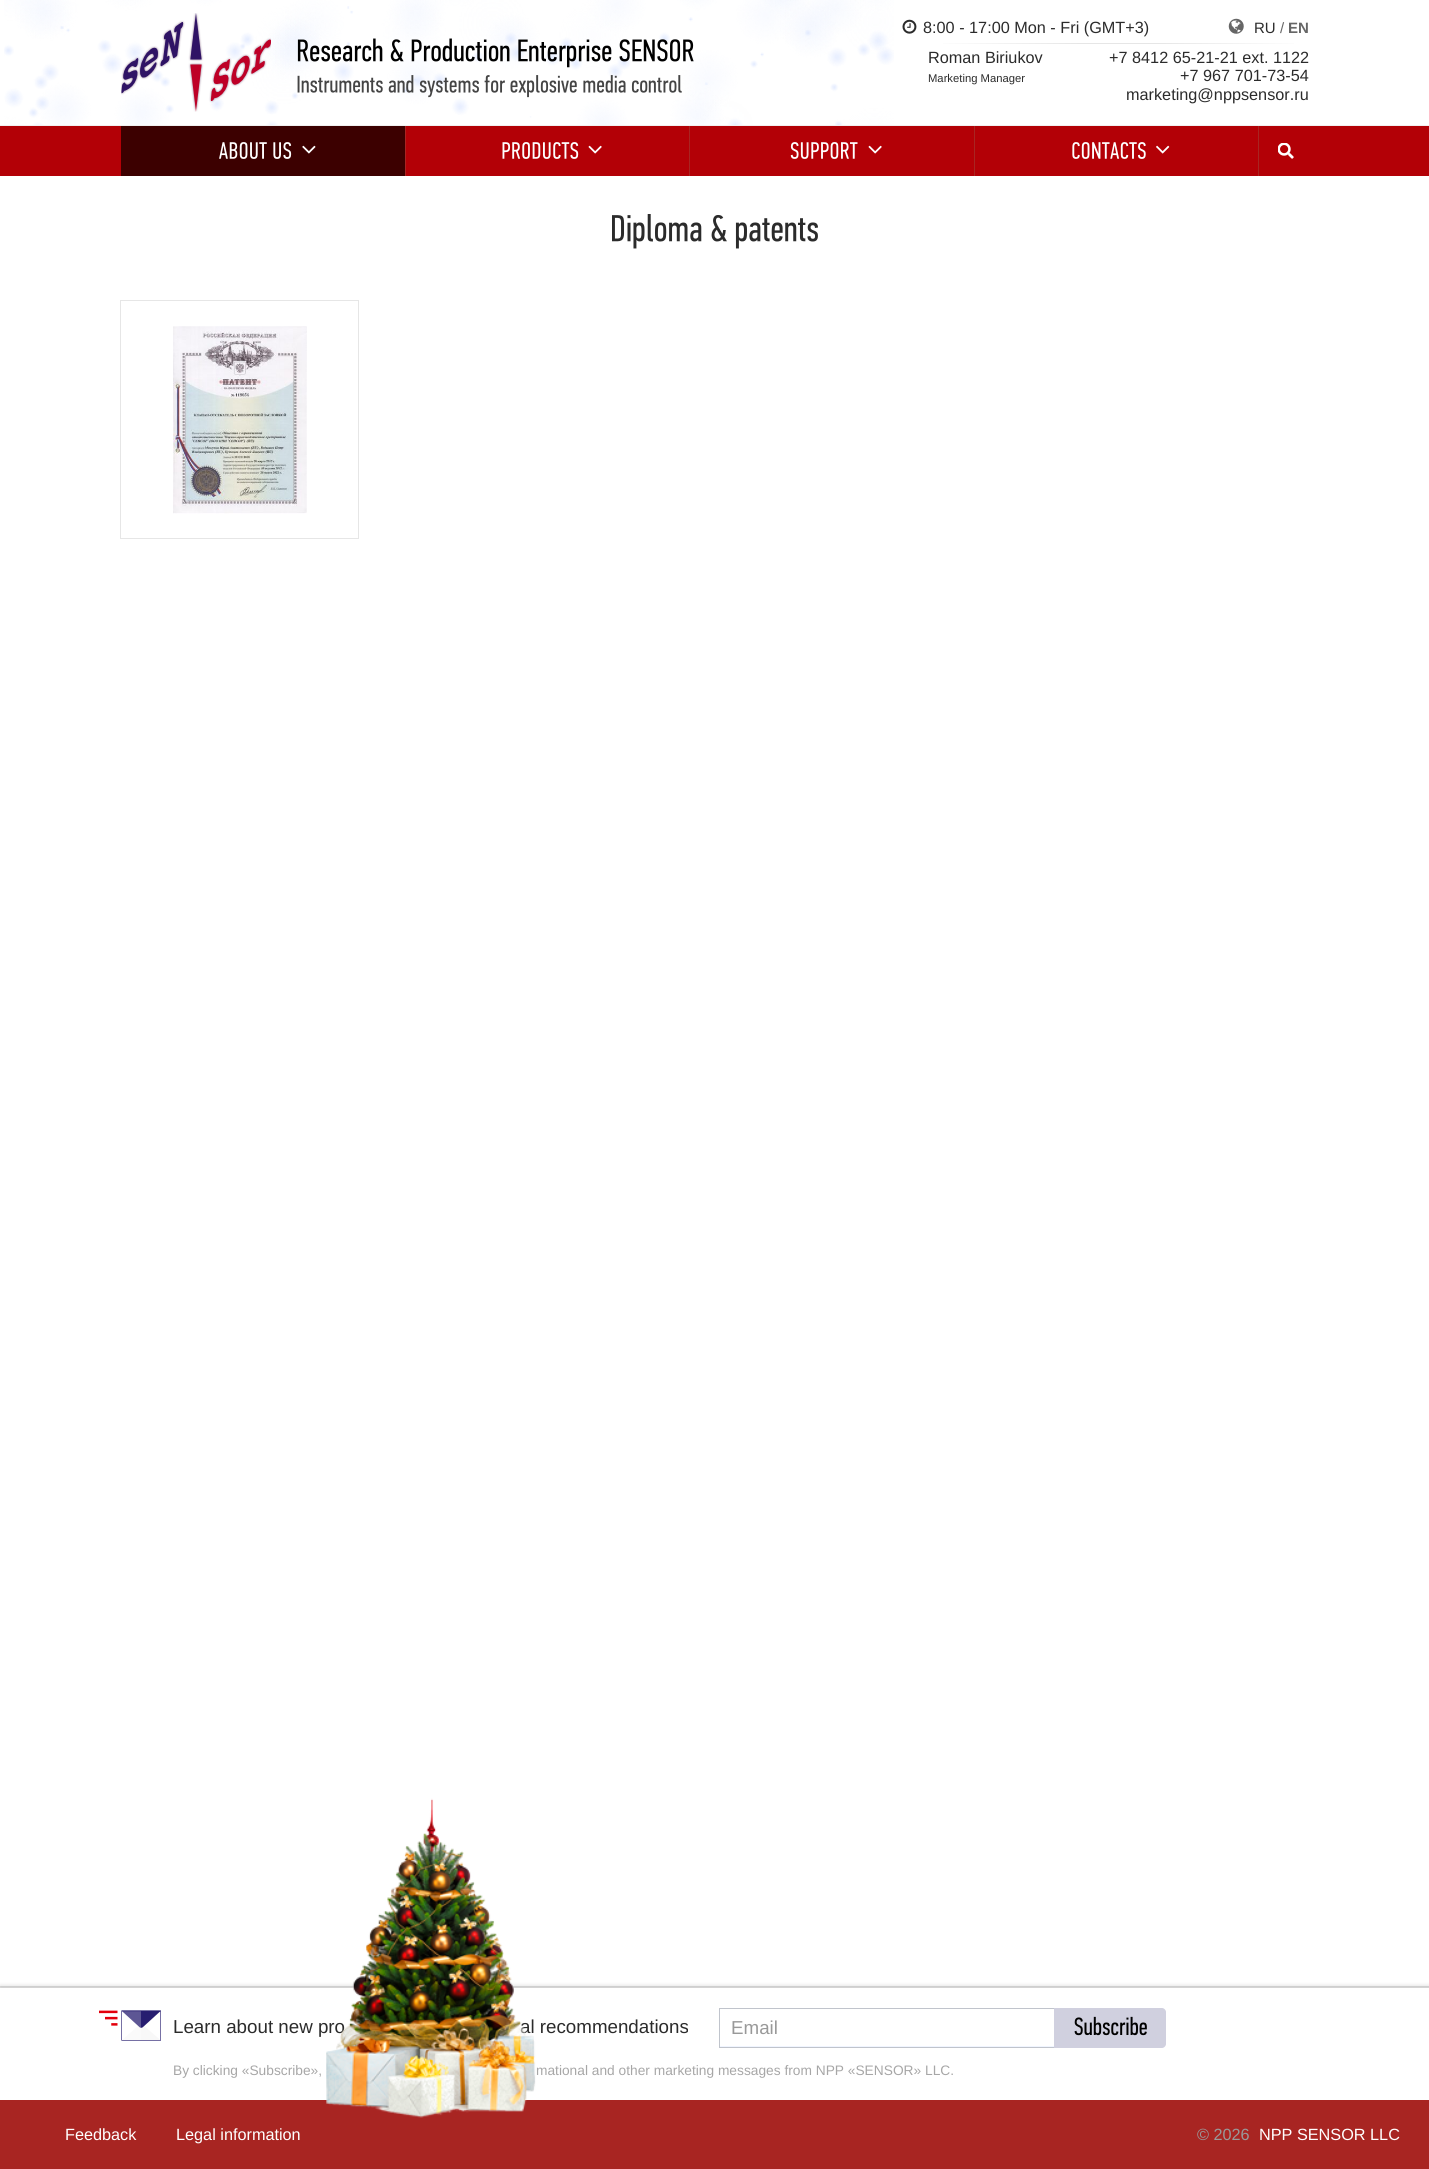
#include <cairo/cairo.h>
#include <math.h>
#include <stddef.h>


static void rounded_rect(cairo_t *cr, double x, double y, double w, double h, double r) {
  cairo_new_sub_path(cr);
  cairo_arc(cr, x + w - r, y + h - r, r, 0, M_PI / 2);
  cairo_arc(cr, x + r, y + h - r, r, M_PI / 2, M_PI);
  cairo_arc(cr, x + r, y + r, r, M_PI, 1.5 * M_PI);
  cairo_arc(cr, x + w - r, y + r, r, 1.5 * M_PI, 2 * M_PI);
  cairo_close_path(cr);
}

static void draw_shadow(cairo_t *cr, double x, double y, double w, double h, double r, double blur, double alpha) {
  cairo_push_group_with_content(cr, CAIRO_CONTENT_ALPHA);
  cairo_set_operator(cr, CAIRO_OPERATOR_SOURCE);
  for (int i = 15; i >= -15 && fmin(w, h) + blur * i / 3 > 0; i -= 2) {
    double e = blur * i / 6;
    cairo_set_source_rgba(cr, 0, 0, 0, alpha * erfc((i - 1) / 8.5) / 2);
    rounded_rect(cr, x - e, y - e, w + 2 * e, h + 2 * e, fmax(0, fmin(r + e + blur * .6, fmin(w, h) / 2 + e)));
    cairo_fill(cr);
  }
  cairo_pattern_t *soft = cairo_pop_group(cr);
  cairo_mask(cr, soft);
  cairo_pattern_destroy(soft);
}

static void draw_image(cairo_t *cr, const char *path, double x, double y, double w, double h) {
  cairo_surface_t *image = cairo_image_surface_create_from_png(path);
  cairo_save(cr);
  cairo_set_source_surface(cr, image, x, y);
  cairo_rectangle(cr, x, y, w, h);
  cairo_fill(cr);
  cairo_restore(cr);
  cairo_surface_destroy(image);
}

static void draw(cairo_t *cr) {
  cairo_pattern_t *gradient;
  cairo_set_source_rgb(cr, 1, 1, 1);
  cairo_paint(cr);
  cairo_set_source_rgb(cr, 240 / 255.0, 240 / 255.0, 240 / 255.0);
  cairo_rectangle(cr, 0, 125, 1429, 1);
  cairo_fill(cr);
  draw_image(cr, "images/1.png", 4, 0, 890, 125);
  draw_image(cr, "images/2.png", 121, 13, 150, 99);
  draw_image(cr, "images/3.png", 297, 38, 397, 30);
  draw_image(cr, "images/4.png", 297, 75, 385, 23);
  draw_image(cr, "images/5.png", 902, 19, 15, 15);
  draw_image(cr, "images/6.png", 1228, 18, 16, 16);
  gradient = cairo_pattern_create_linear(928, 43, 1309, 43);
  cairo_pattern_add_color_stop_rgba(gradient, 0, 1, 1, 1, 1);
  cairo_pattern_add_color_stop_rgba(gradient, 0.4, 230 / 255.0, 230 / 255.0, 230 / 255.0, 1);
  cairo_pattern_add_color_stop_rgba(gradient, 0.6, 230 / 255.0, 230 / 255.0, 230 / 255.0, 1);
  cairo_pattern_add_color_stop_rgba(gradient, 1, 1, 1, 1, 1);
  cairo_set_source(cr, gradient);
  cairo_pattern_destroy(gradient);
  cairo_rectangle(cr, 943, 43, 351, 1);
  cairo_fill(cr);
  cairo_set_source_rgb(cr, 179 / 255.0, 0, 6 / 255.0);
  cairo_rectangle(cr, 0, 126, 1429, 50);
  cairo_fill(cr);
  cairo_set_source_rgb(cr, 60 / 255.0, 0, 0);
  cairo_rectangle(cr, 121, 126, 284, 50);
  cairo_fill(cr);
  draw_image(cr, "images/7.png", 219, 142, 73, 17);
  draw_image(cr, "images/8.png", 302, 145, 14, 9);
  cairo_set_source_rgb(cr, 168 / 255.0, 37 / 255.0, 34 / 255.0);
  cairo_rectangle(cr, 405, 126, 1, 50);
  cairo_fill(cr);
  draw_image(cr, "images/9.png", 502, 142, 77, 17);
  draw_image(cr, "images/10.png", 588, 145, 14, 9);
  cairo_rectangle(cr, 689, 126, 1, 50);
  cairo_fill(cr);
  draw_image(cr, "images/11.png", 790, 142, 68, 17);
  draw_image(cr, "images/10.png", 868, 145, 14, 9);
  cairo_rectangle(cr, 974, 126, 1, 50);
  cairo_fill(cr);
  draw_image(cr, "images/12.png", 1072, 142, 74, 17);
  draw_image(cr, "images/13.png", 1156, 145, 14, 9);
  cairo_rectangle(cr, 1258, 126, 1, 50);
  cairo_fill(cr);
  draw_image(cr, "images/14.png", 1278, 143, 16, 16);
  draw_image(cr, "images/15.png", 612, 214, 206, 35);
  cairo_set_source_rgb(cr, 230 / 255.0, 230 / 255.0, 230 / 255.0);
  cairo_new_path(cr);
  cairo_move_to(cr, 121, 300);
  cairo_line_to(cr, 121, 538);
  cairo_line_to(cr, 121, 301);
  cairo_line_to(cr, 359, 301);
  cairo_line_to(cr, 359, 538);
  cairo_line_to(cr, 359, 300);
  cairo_close_path(cr);
  cairo_fill(cr);
  cairo_new_path(cr);
  cairo_move_to(cr, 120, 301);
  cairo_line_to(cr, 120, 539);
  cairo_line_to(cr, 358, 539);
  cairo_line_to(cr, 121, 539);
  cairo_line_to(cr, 121, 301);
  cairo_line_to(cr, 358, 301);
  cairo_close_path(cr);
  cairo_fill(cr);
  cairo_new_path(cr);
  cairo_move_to(cr, 120, 300);
  cairo_line_to(cr, 120, 538);
  cairo_line_to(cr, 121, 538);
  cairo_line_to(cr, 121, 301);
  cairo_line_to(cr, 358, 301);
  cairo_line_to(cr, 358, 300);
  cairo_close_path(cr);
  cairo_fill(cr);
  cairo_rectangle(cr, 121, 538, 238, 1);
  cairo_fill(cr);
  cairo_rectangle(cr, 358, 301, 1, 238);
  cairo_fill(cr);
  draw_image(cr, "images/16.png", 173, 326, 134, 188);
  cairo_set_source_rgb(cr, 244 / 255.0, 244 / 255.0, 244 / 255.0);
  cairo_rectangle(cr, 0, 1987, 1429, 1);
  cairo_fill(cr);
  cairo_set_source_rgb(cr, 228 / 255.0, 228 / 255.0, 228 / 255.0);
  cairo_rectangle(cr, 0, 1986, 1429, 1);
  cairo_fill(cr);
  cairo_set_source_rgb(cr, 0, 0, 0);
  draw_shadow(cr, 0, 1988, 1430, 112, 0, 3, 0.3);
  cairo_set_source_rgb(cr, 1, 1, 1);
  cairo_rectangle(cr, 0, 1988, 1429, 112);
  cairo_fill(cr);
  draw_image(cr, "images/17.png", 99, 2010, 62, 31);
  cairo_set_source_rgb(cr, 240 / 255.0, 245 / 255.0, 1);
  cairo_rectangle(cr, 720, 2046, 334, 1);
  cairo_fill(cr);
  cairo_rectangle(cr, 719.5, 2008.5, 335, 39);
  cairo_set_source_rgb(cr, 192 / 255.0, 196 / 255.0, 204 / 255.0);
  cairo_set_line_width(cr, 1);
  cairo_stroke(cr);
  cairo_set_source_rgb(cr, 208 / 255.0, 208 / 255.0, 223 / 255.0);
  cairo_new_path(cr);
  cairo_move_to(cr, 1054, 2008);
  cairo_line_to(cr, 1162, 2008);
  cairo_curve_to(cr, 1164, 2008, 1166, 2010, 1166, 2012);
  cairo_line_to(cr, 1166, 2044);
  cairo_curve_to(cr, 1166, 2046, 1164, 2048, 1162, 2048);
  cairo_line_to(cr, 1054, 2048);
  cairo_close_path(cr);
  cairo_fill(cr);
  draw_image(cr, "images/18.png", 1074, 2016, 73, 20);
  cairo_set_source_rgb(cr, 168 / 255.0, 37 / 255.0, 34 / 255.0);
  cairo_rectangle(cr, 0, 2100, 1429, 69);
  cairo_fill(cr);
  cairo_select_font_face(cr, "Liberation Sans", CAIRO_FONT_SLANT_NORMAL, CAIRO_FONT_WEIGHT_NORMAL);
  cairo_set_font_size(cr, 16.25);
  cairo_set_source_rgb(cr, 43 / 255.0, 43 / 255.0, 43 / 255.0);
  cairo_move_to(cr, 923, 33);
  cairo_show_text(cr, "8:00 - 17:00 Mon - Fri (GMT+3)");
  cairo_set_font_size(cr, 15);
  cairo_move_to(cr, 1254, 33);
  cairo_show_text(cr, "RU");
  cairo_set_source_rgb(cr, 102 / 255.0, 102 / 255.0, 102 / 255.0);
  cairo_move_to(cr, 1280, 33);
  cairo_show_text(cr, "/");
  cairo_select_font_face(cr, "Liberation Sans", CAIRO_FONT_SLANT_NORMAL, CAIRO_FONT_WEIGHT_BOLD);
  cairo_move_to(cr, 1288, 33);
  cairo_show_text(cr, "EN");
  cairo_select_font_face(cr, "Liberation Sans", CAIRO_FONT_SLANT_NORMAL, CAIRO_FONT_WEIGHT_NORMAL);
  cairo_set_font_size(cr, 16.25);
  cairo_set_source_rgb(cr, 43 / 255.0, 43 / 255.0, 43 / 255.0);
  cairo_move_to(cr, 928, 63);
  cairo_show_text(cr, "Roman Biriukov");
  cairo_set_font_size(cr, 11.25);
  cairo_move_to(cr, 928, 82);
  cairo_show_text(cr, "Marketing Manager");
  cairo_set_font_size(cr, 16.25);
  cairo_move_to(cr, 1109, 63);
  cairo_show_text(cr, "+7 8412 65-21-21 ext. 1122");
  cairo_move_to(cr, 1180, 81);
  cairo_show_text(cr, "+7 967 701-73-54");
  cairo_move_to(cr, 1126, 100);
  cairo_show_text(cr, "marketing@nppsensor.ru");
  cairo_set_font_size(cr, 18.75);
  cairo_move_to(cr, 173, 2033);
  cairo_show_text(cr, "Learn about new pro");
  cairo_move_to(cr, 520, 2033);
  cairo_show_text(cr, "al recommendations");
  cairo_set_source_rgb(cr, 153 / 255.0, 153 / 255.0, 153 / 255.0);
  cairo_move_to(cr, 731, 2034);
  cairo_show_text(cr, "Email");
  cairo_set_font_size(cr, 13.75);
  cairo_set_source_rgb(cr, 167 / 255.0, 167 / 255.0, 167 / 255.0);
  cairo_move_to(cr, 173, 2075);
  cairo_show_text(cr, "By clicking «Subscribe»,");
  cairo_move_to(cr, 536, 2075);
  cairo_show_text(cr, "mational and other marketing messages from NPP «SENSOR» LLC.");
  draw_image(cr, "images/19.png", 326, 1798, 210, 320);
  cairo_set_font_size(cr, 16.25);
  cairo_set_source_rgb(cr, 1, 1, 1);
  cairo_move_to(cr, 65, 2140);
  cairo_show_text(cr, "Feedback");
  cairo_move_to(cr, 176, 2140);
  cairo_show_text(cr, "Legal information");
  cairo_set_source_rgb(cr, 153 / 255.0, 153 / 255.0, 153 / 255.0);
  cairo_move_to(cr, 1197, 2140);
  cairo_show_text(cr, "© 2026");
  cairo_set_source_rgb(cr, 1, 1, 1);
  cairo_move_to(cr, 1259, 2140);
  cairo_show_text(cr, "NPP SENSOR LLC");
}

int main(void) {
  cairo_surface_t *surface = cairo_image_surface_create(CAIRO_FORMAT_RGB24, 1429, 2169);
  cairo_t *cr = cairo_create(surface);
  cairo_font_options_t *options = cairo_font_options_create();
  cairo_font_options_set_hint_metrics(options, CAIRO_HINT_METRICS_OFF);
  cairo_font_options_set_hint_style(options, CAIRO_HINT_STYLE_NONE);
  cairo_set_font_options(cr, options);
  cairo_set_miter_limit(cr, 4);
  draw(cr);
  cairo_surface_write_to_png(surface, "out.png");
  cairo_font_options_destroy(options);
  cairo_destroy(cr);
  cairo_surface_destroy(surface);
  return 0;
}
